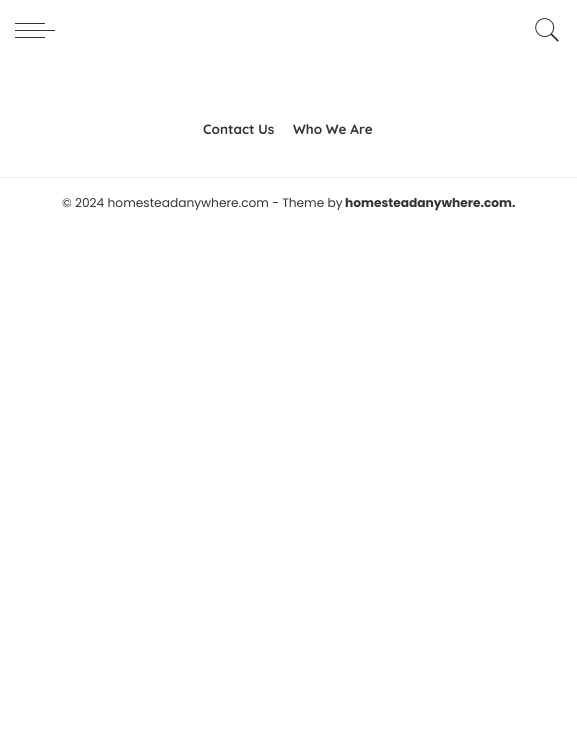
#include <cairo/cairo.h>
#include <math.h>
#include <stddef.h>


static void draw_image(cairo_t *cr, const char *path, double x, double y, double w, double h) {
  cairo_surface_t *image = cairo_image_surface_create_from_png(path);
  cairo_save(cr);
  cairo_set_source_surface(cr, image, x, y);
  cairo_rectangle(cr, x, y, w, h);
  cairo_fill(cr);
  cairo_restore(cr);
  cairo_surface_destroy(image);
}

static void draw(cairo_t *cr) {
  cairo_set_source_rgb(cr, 1, 1, 1);
  cairo_paint(cr);
  cairo_set_source_rgb(cr, 51 / 255.0, 51 / 255.0, 51 / 255.0);
  cairo_rectangle(cr, 15, 30, 40, 1);
  cairo_fill(cr);
  cairo_rectangle(cr, 15, 23, 30, 1);
  cairo_fill(cr);
  cairo_rectangle(cr, 15, 37, 30, 1);
  cairo_fill(cr);
  draw_image(cr, "images/1.png", 535, 18, 24, 24);
  cairo_set_source_rgb(cr, 239 / 255.0, 239 / 255.0, 239 / 255.0);
  cairo_rectangle(cr, 0, 177, 577, 1);
  cairo_fill(cr);
  cairo_select_font_face(cr, "Quicksand", CAIRO_FONT_SLANT_NORMAL, CAIRO_FONT_WEIGHT_BOLD);
  cairo_set_font_size(cr, 13.5);
  cairo_set_source_rgb(cr, 51 / 255.0, 51 / 255.0, 51 / 255.0);
  cairo_move_to(cr, 203, 134);
  cairo_show_text(cr, "Contact Us");
  cairo_move_to(cr, 293, 134);
  cairo_show_text(cr, "Who We Are");
  cairo_select_font_face(cr, "Poppins", CAIRO_FONT_SLANT_NORMAL, CAIRO_FONT_WEIGHT_NORMAL);
  cairo_set_font_size(cr, 12.2);
  cairo_move_to(cr, 62, 207);
  cairo_show_text(cr, "© 2024 homesteadanywhere.com - Theme by");
  cairo_select_font_face(cr, "Poppins", CAIRO_FONT_SLANT_NORMAL, CAIRO_FONT_WEIGHT_BOLD);
  cairo_move_to(cr, 345, 207);
  cairo_show_text(cr, "homesteadanywhere.com.");
}

int main(void) {
  cairo_surface_t *surface = cairo_image_surface_create(CAIRO_FORMAT_RGB24, 577, 733);
  cairo_t *cr = cairo_create(surface);
  cairo_font_options_t *options = cairo_font_options_create();
  cairo_font_options_set_hint_metrics(options, CAIRO_HINT_METRICS_OFF);
  cairo_font_options_set_hint_style(options, CAIRO_HINT_STYLE_NONE);
  cairo_set_font_options(cr, options);
  cairo_set_miter_limit(cr, 4);
  draw(cr);
  cairo_surface_write_to_png(surface, "out.png");
  cairo_font_options_destroy(options);
  cairo_destroy(cr);
  cairo_surface_destroy(surface);
  return 0;
}
